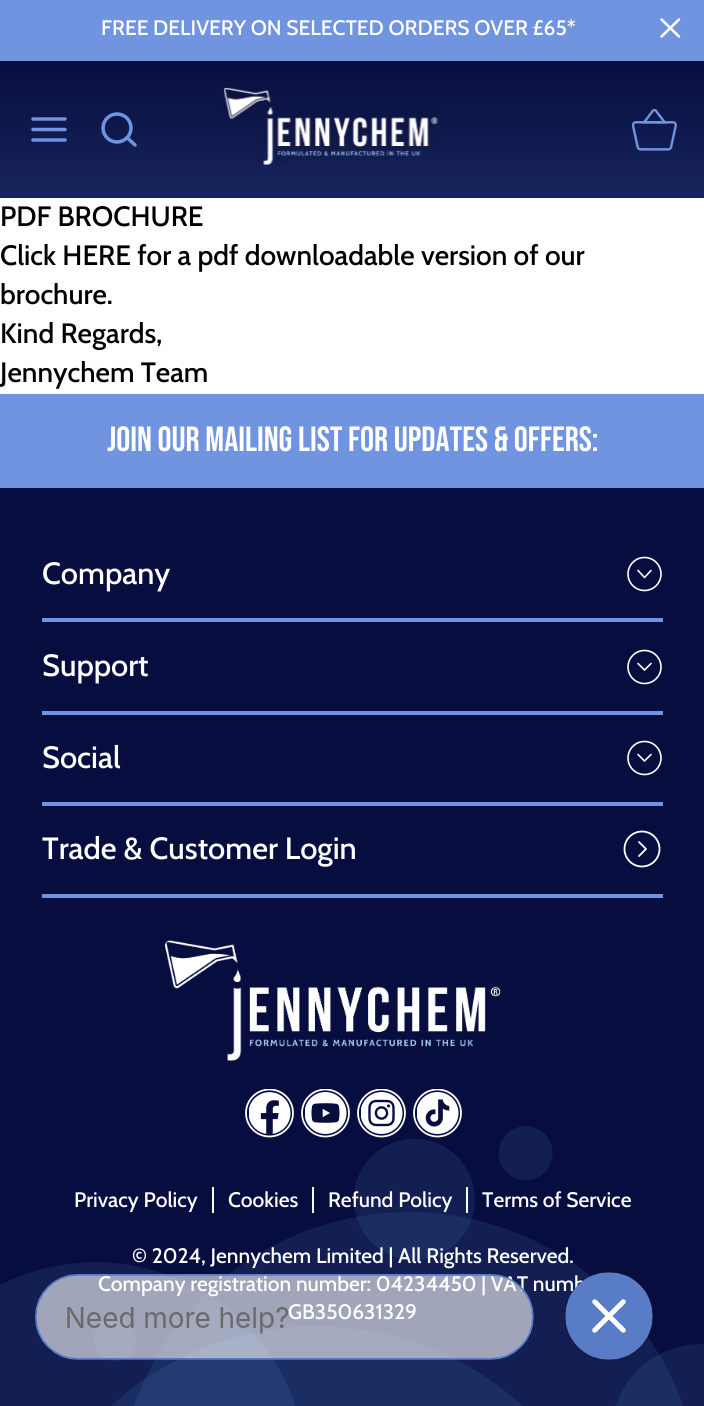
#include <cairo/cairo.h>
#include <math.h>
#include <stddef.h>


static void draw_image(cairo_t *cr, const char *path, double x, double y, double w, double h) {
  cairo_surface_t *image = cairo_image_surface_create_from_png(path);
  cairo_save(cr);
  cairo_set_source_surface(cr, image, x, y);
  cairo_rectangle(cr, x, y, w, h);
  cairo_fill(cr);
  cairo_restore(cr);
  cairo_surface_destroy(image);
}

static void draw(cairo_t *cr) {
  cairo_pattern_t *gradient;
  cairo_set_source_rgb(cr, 1, 1, 1);
  cairo_paint(cr);
  cairo_set_source_rgb(cr, 112 / 255.0, 148 / 255.0, 224 / 255.0);
  cairo_rectangle(cr, 0, 0, 704, 61);
  cairo_fill(cr);
  cairo_new_path(cr);
  cairo_move_to(cr, 661.5, 19.5);
  cairo_line_to(cr, 679, 36.5);
  cairo_move_to(cr, 679, 19.5);
  cairo_line_to(cr, 661.5, 36.5);
  cairo_set_source_rgb(cr, 1, 1, 1);
  cairo_set_line_width(cr, 2.6);
  cairo_set_line_cap(cr, CAIRO_LINE_CAP_ROUND);
  cairo_set_line_join(cr, CAIRO_LINE_JOIN_ROUND);
  cairo_stroke(cr);
  gradient = cairo_pattern_create_linear(353, 61, 353, 198);
  cairo_pattern_add_color_stop_rgba(gradient, 0, 8 / 255.0, 13 / 255.0, 63 / 255.0, 1);
  cairo_pattern_add_color_stop_rgba(gradient, 1, 23 / 255.0, 37 / 255.0, 93 / 255.0, 1);
  cairo_set_source(cr, gradient);
  cairo_pattern_destroy(gradient);
  cairo_rectangle(cr, 0, 61, 704, 137);
  cairo_fill(cr);
  cairo_new_path(cr);
  cairo_move_to(cr, 33, 119);
  cairo_line_to(cr, 65, 119);
  cairo_move_to(cr, 33, 129.5);
  cairo_line_to(cr, 65, 129.5);
  cairo_move_to(cr, 33, 140);
  cairo_line_to(cr, 65, 140);
  cairo_set_source_rgb(cr, 112 / 255.0, 148 / 255.0, 224 / 255.0);
  cairo_set_line_width(cr, 3.5);
  cairo_stroke(cr);
  cairo_arc(cr, 117, 128, 14, 0, 2 * M_PI);
  cairo_set_line_cap(cr, CAIRO_LINE_CAP_BUTT);
  cairo_set_line_join(cr, CAIRO_LINE_JOIN_MITER);
  cairo_stroke(cr);
  cairo_new_path(cr);
  cairo_move_to(cr, 135, 145);
  cairo_line_to(cr, 127, 137.5);
  cairo_set_line_cap(cr, CAIRO_LINE_CAP_ROUND);
  cairo_set_line_join(cr, CAIRO_LINE_JOIN_ROUND);
  cairo_stroke(cr);
  draw_image(cr, "images/1.png", 223, 87, 215, 78);
  draw_image(cr, "images/2.png", 632, 109, 45, 42);
  cairo_rectangle(cr, 0, 394, 704, 94);
  cairo_fill(cr);
  cairo_set_source_rgb(cr, 8 / 255.0, 13 / 255.0, 63 / 255.0);
  cairo_rectangle(cr, 0, 488, 704, 918);
  cairo_fill(cr);
  cairo_set_source_rgb(cr, 112 / 255.0, 148 / 255.0, 224 / 255.0);
  cairo_rectangle(cr, 42, 618, 621, 4);
  cairo_fill(cr);
  cairo_arc(cr, 644.5, 574, 16.5, 0, 2 * M_PI);
  cairo_set_source_rgb(cr, 1, 1, 1);
  cairo_set_line_width(cr, 1.6);
  cairo_set_line_cap(cr, CAIRO_LINE_CAP_BUTT);
  cairo_set_line_join(cr, CAIRO_LINE_JOIN_MITER);
  cairo_stroke(cr);
  cairo_new_path(cr);
  cairo_move_to(cr, 651, 570.5);
  cairo_line_to(cr, 644.5, 577.5);
  cairo_line_to(cr, 638, 570.5);
  cairo_set_line_cap(cr, CAIRO_LINE_CAP_ROUND);
  cairo_set_line_join(cr, CAIRO_LINE_JOIN_ROUND);
  cairo_stroke(cr);
  cairo_set_source_rgb(cr, 112 / 255.0, 148 / 255.0, 224 / 255.0);
  cairo_rectangle(cr, 42, 711, 621, 4);
  cairo_fill(cr);
  cairo_arc(cr, 644.5, 667, 16.5, 0, 2 * M_PI);
  cairo_set_source_rgb(cr, 1, 1, 1);
  cairo_set_line_cap(cr, CAIRO_LINE_CAP_BUTT);
  cairo_set_line_join(cr, CAIRO_LINE_JOIN_MITER);
  cairo_stroke(cr);
  cairo_new_path(cr);
  cairo_move_to(cr, 651, 663.5);
  cairo_line_to(cr, 644.5, 670);
  cairo_line_to(cr, 638, 663.5);
  cairo_set_line_cap(cr, CAIRO_LINE_CAP_ROUND);
  cairo_set_line_join(cr, CAIRO_LINE_JOIN_ROUND);
  cairo_stroke(cr);
  cairo_set_source_rgb(cr, 112 / 255.0, 148 / 255.0, 224 / 255.0);
  cairo_rectangle(cr, 42, 802, 621, 4);
  cairo_fill(cr);
  cairo_arc(cr, 644.5, 758, 16.5, 0, 2 * M_PI);
  cairo_set_source_rgb(cr, 1, 1, 1);
  cairo_set_line_cap(cr, CAIRO_LINE_CAP_BUTT);
  cairo_set_line_join(cr, CAIRO_LINE_JOIN_MITER);
  cairo_stroke(cr);
  cairo_new_path(cr);
  cairo_move_to(cr, 651, 754.5);
  cairo_line_to(cr, 644.5, 761);
  cairo_line_to(cr, 638, 754.5);
  cairo_set_line_cap(cr, CAIRO_LINE_CAP_ROUND);
  cairo_set_line_join(cr, CAIRO_LINE_JOIN_ROUND);
  cairo_stroke(cr);
  cairo_set_source_rgb(cr, 112 / 255.0, 148 / 255.0, 224 / 255.0);
  cairo_rectangle(cr, 42, 894, 621, 4);
  cairo_fill(cr);
  cairo_arc(cr, 642, 849, 17.5, 0, 2 * M_PI);
  cairo_set_source_rgb(cr, 1, 1, 1);
  cairo_set_line_width(cr, 1.8);
  cairo_set_line_cap(cr, CAIRO_LINE_CAP_BUTT);
  cairo_set_line_join(cr, CAIRO_LINE_JOIN_MITER);
  cairo_stroke(cr);
  cairo_new_path(cr);
  cairo_move_to(cr, 639, 842);
  cairo_line_to(cr, 646, 849);
  cairo_line_to(cr, 639, 856);
  cairo_set_line_cap(cr, CAIRO_LINE_CAP_ROUND);
  cairo_set_line_join(cr, CAIRO_LINE_JOIN_ROUND);
  cairo_stroke(cr);
  draw_image(cr, "images/3.png", 164, 940, 337, 121);
  draw_image(cr, "images/8.png", 0, 1126, 704, 280);
  draw_image(cr, "images/4.png", 245, 1089, 49, 49);
  draw_image(cr, "images/5.png", 301, 1089, 49, 49);
  draw_image(cr, "images/6.png", 357, 1089, 49, 49);
  draw_image(cr, "images/7.png", 413, 1089, 49, 49);
  cairo_rectangle(cr, 212, 1187, 2, 26);
  cairo_fill(cr);
  cairo_rectangle(cr, 312, 1187, 2, 26);
  cairo_fill(cr);
  cairo_rectangle(cr, 466, 1187, 2, 26);
  cairo_fill(cr);
  cairo_select_font_face(cr, "Cabin Medium", CAIRO_FONT_SLANT_NORMAL, CAIRO_FONT_WEIGHT_NORMAL);
  cairo_set_font_size(cr, 21);
  cairo_move_to(cr, 101, 35);
  cairo_show_text(cr, "FREE DELIVERY ON SELECTED ORDERS OVER £65*");
  cairo_set_font_size(cr, 28);
  cairo_set_source_rgb(cr, 0, 0, 0);
  cairo_move_to(cr, 0, 226);
  cairo_show_text(cr, "PDF BROCHURE");
  cairo_move_to(cr, 0, 265);
  cairo_show_text(cr, "Click HERE for a pdf downloadable version of our");
  cairo_move_to(cr, 0, 304);
  cairo_show_text(cr, "brochure.");
  cairo_move_to(cr, 0, 343);
  cairo_show_text(cr, "Kind Regards,");
  cairo_move_to(cr, 0, 382);
  cairo_show_text(cr, "Jennychem Team");
  cairo_select_font_face(cr, "Bebas Neue", CAIRO_FONT_SLANT_NORMAL, CAIRO_FONT_WEIGHT_NORMAL);
  cairo_set_font_size(cr, 35);
  cairo_set_source_rgb(cr, 1, 1, 1);
  cairo_move_to(cr, 107, 451);
  cairo_show_text(cr, "Join Our Mailing List For Updates & Offers:");
  cairo_select_font_face(cr, "Cabin Medium", CAIRO_FONT_SLANT_NORMAL, CAIRO_FONT_WEIGHT_NORMAL);
  cairo_set_font_size(cr, 30.75);
  cairo_move_to(cr, 42, 584);
  cairo_show_text(cr, "Company");
  cairo_move_to(cr, 42, 676);
  cairo_show_text(cr, "Support");
  cairo_move_to(cr, 42, 768);
  cairo_show_text(cr, "Social");
  cairo_move_to(cr, 42, 859);
  cairo_show_text(cr, "Trade & Customer Login");
  cairo_set_font_size(cr, 21);
  cairo_move_to(cr, 74, 1207);
  cairo_show_text(cr, "Privacy Policy");
  cairo_move_to(cr, 228, 1207);
  cairo_show_text(cr, "Cookies");
  cairo_move_to(cr, 328, 1207);
  cairo_show_text(cr, "Refund Policy");
  cairo_move_to(cr, 482, 1207);
  cairo_show_text(cr, "Terms of Service");
  cairo_move_to(cr, 132, 1263);
  cairo_show_text(cr, "© 2024, Jennychem Limited | All Rights Reserved.");
  cairo_move_to(cr, 98, 1291);
  cairo_show_text(cr, "Company registration number: 04234450 | VAT numb");
  cairo_move_to(cr, 288, 1319);
  cairo_show_text(cr, "GB350631329");
  draw_image(cr, "images/9.png", 35, 1272, 618, 92);
}

int main(void) {
  cairo_surface_t *surface = cairo_image_surface_create(CAIRO_FORMAT_RGB24, 704, 1406);
  cairo_t *cr = cairo_create(surface);
  cairo_font_options_t *options = cairo_font_options_create();
  cairo_font_options_set_hint_metrics(options, CAIRO_HINT_METRICS_OFF);
  cairo_font_options_set_hint_style(options, CAIRO_HINT_STYLE_NONE);
  cairo_set_font_options(cr, options);
  cairo_set_miter_limit(cr, 4);
  draw(cr);
  cairo_surface_write_to_png(surface, "out.png");
  cairo_font_options_destroy(options);
  cairo_destroy(cr);
  cairo_surface_destroy(surface);
  return 0;
}
